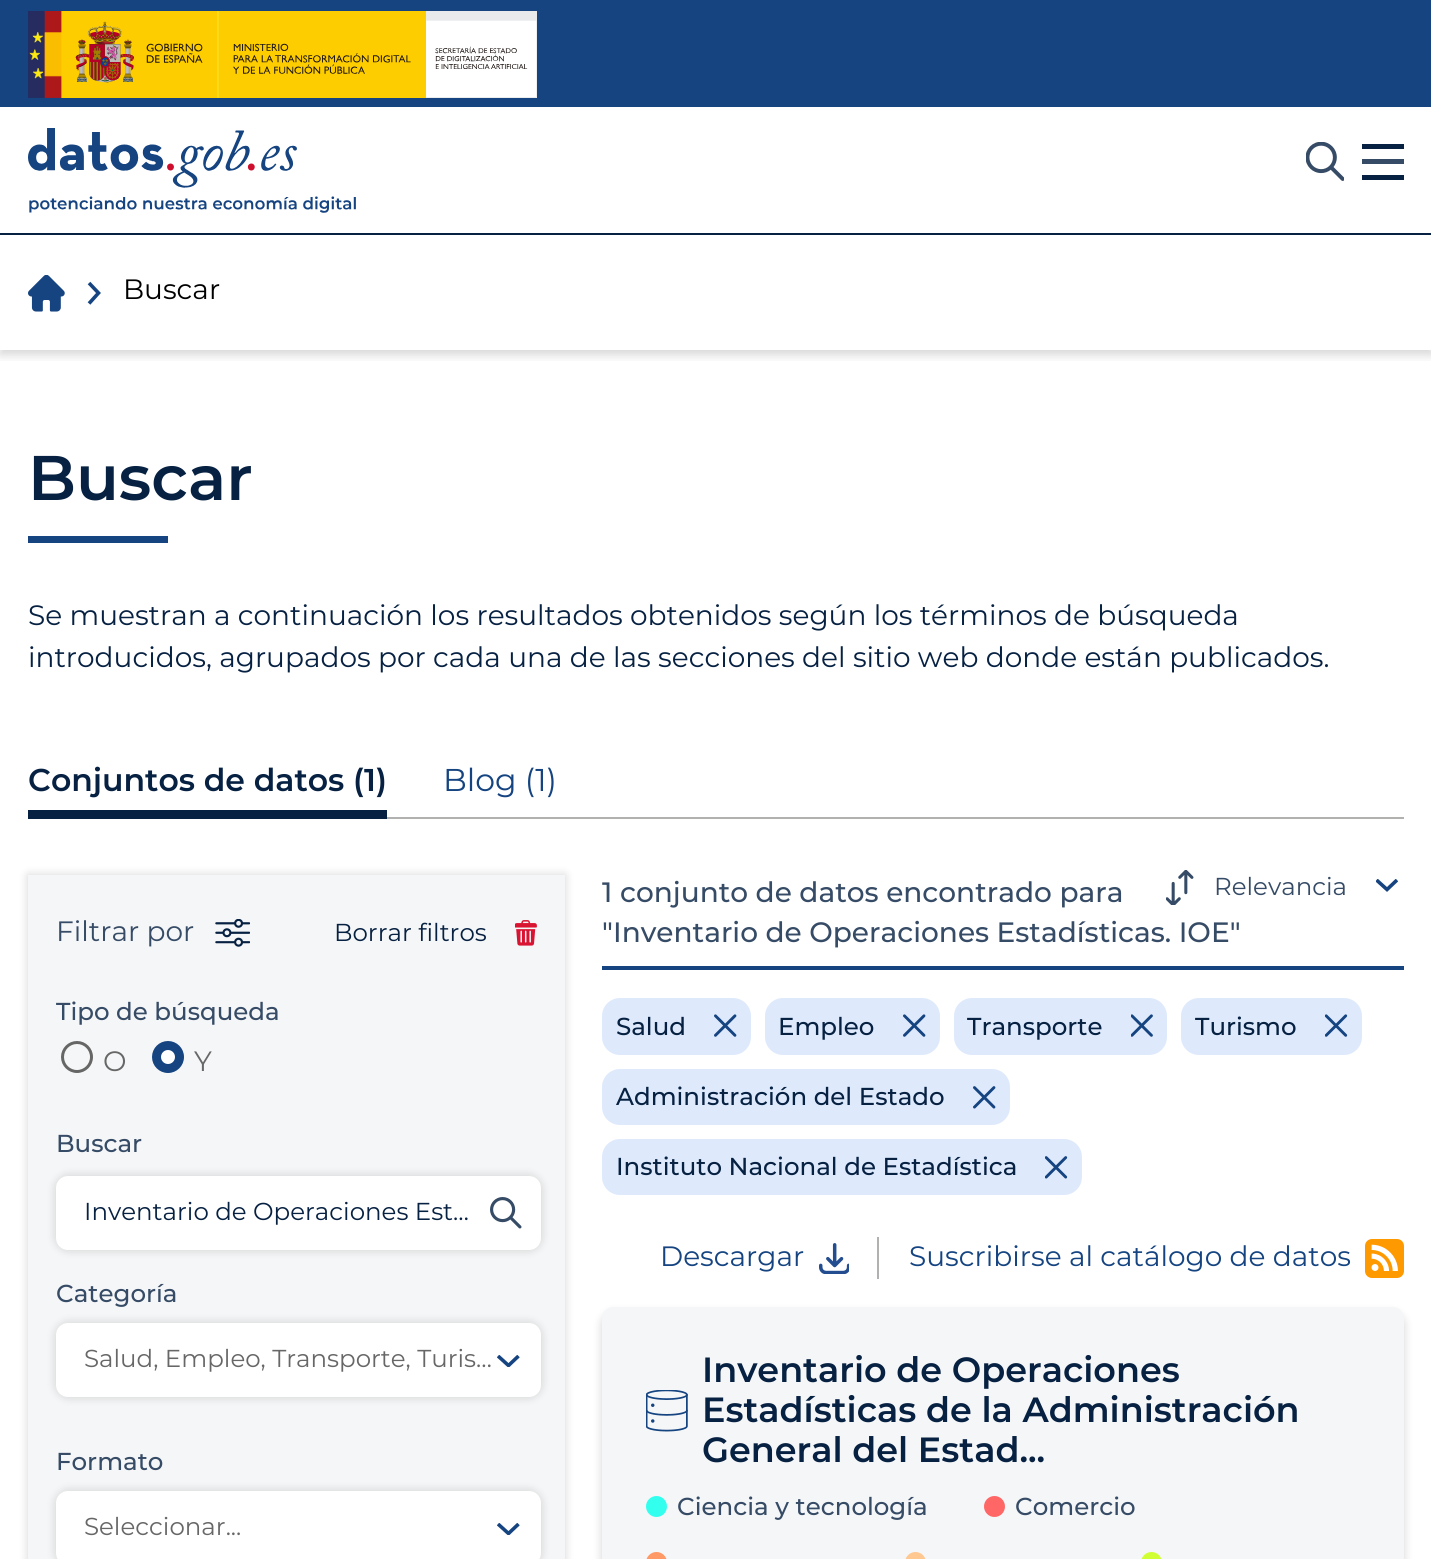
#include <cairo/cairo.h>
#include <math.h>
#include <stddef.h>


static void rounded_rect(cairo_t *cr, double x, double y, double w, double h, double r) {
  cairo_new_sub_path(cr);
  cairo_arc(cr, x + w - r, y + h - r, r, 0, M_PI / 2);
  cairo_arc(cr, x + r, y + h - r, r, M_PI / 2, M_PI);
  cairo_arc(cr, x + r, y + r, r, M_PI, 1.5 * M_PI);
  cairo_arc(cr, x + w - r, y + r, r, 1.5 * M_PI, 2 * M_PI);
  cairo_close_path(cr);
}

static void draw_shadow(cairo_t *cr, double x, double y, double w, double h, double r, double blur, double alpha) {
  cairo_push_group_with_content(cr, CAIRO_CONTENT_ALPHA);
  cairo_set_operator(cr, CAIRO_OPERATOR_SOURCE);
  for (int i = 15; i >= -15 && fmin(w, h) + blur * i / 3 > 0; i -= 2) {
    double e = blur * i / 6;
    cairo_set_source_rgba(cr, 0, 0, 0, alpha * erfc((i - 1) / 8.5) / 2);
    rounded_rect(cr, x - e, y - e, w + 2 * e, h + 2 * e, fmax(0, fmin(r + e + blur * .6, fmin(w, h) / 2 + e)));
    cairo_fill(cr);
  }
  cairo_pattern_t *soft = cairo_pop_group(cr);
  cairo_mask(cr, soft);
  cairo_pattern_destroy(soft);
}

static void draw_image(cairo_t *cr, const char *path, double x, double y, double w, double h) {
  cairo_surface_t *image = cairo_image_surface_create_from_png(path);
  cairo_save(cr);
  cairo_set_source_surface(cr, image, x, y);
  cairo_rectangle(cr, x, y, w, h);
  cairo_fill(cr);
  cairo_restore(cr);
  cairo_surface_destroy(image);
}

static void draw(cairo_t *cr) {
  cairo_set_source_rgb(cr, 1, 1, 1);
  cairo_paint(cr);
  cairo_set_source_rgb(cr, 21 / 255.0, 68 / 255.0, 129 / 255.0);
  cairo_rectangle(cr, 0, 0, 1431, 107);
  cairo_fill(cr);
  draw_image(cr, "images/1.png", 28, 11, 509, 87);
  cairo_set_source_rgb(cr, 7 / 255.0, 33 / 255.0, 66 / 255.0);
  cairo_rectangle(cr, 0, 233, 1431, 2);
  cairo_fill(cr);
  draw_image(cr, "images/2.png", 28, 128, 328, 85);
  draw_image(cr, "images/3.png", 1306, 142, 38, 39);
  cairo_set_source_rgb(cr, 54 / 255.0, 75 / 255.0, 102 / 255.0);
  cairo_rectangle(cr, 1362, 159, 42, 5);
  cairo_fill(cr);
  cairo_set_source_rgb(cr, 7 / 255.0, 33 / 255.0, 66 / 255.0);
  cairo_rectangle(cr, 1362, 144, 42, 5);
  cairo_fill(cr);
  cairo_rectangle(cr, 1362, 175, 42, 5);
  cairo_fill(cr);
  cairo_save(cr);
  cairo_rectangle(cr, 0, 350, 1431, 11);
  cairo_clip(cr);
  cairo_set_source_rgb(cr, 0, 0, 0);
  draw_shadow(cr, 0, 240, 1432, 115, 0, 5, 0.16);
  cairo_restore(cr);
  draw_image(cr, "images/4.png", 28, 275, 37, 37);
  cairo_new_path(cr);
  cairo_move_to(cr, 89, 303.5);
  cairo_line_to(cr, 98.5, 293);
  cairo_line_to(cr, 89, 283);
  cairo_set_source_rgb(cr, 21 / 255.0, 68 / 255.0, 129 / 255.0);
  cairo_set_line_width(cr, 3.6);
  cairo_stroke(cr);
  cairo_rectangle(cr, 28, 536, 140, 7);
  cairo_fill(cr);
  cairo_set_source_rgb(cr, 177 / 255.0, 177 / 255.0, 176 / 255.0);
  cairo_rectangle(cr, 387, 817, 1017, 2);
  cairo_fill(cr);
  cairo_set_source_rgb(cr, 7 / 255.0, 33 / 255.0, 66 / 255.0);
  cairo_rectangle(cr, 28, 810, 359, 9);
  cairo_fill(cr);
  cairo_set_source_rgb(cr, 0, 0, 0);
  draw_shadow(cr, 28, 875, 537, 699, 0, 5, 0.16);
  cairo_set_source_rgb(cr, 245 / 255.0, 246 / 255.0, 247 / 255.0);
  cairo_rectangle(cr, 28, 875, 537, 684);
  cairo_fill(cr);
  draw_image(cr, "images/5.png", 215, 919, 35, 28);
  draw_image(cr, "images/6.png", 515, 920, 22, 26);
  cairo_arc(cr, 77, 1057, 14.5, 0, 2 * M_PI);
  cairo_set_source_rgb(cr, 102 / 255.0, 102 / 255.0, 102 / 255.0);
  cairo_set_line_width(cr, 3);
  cairo_stroke(cr);
  cairo_set_source_rgb(cr, 21 / 255.0, 68 / 255.0, 129 / 255.0);
  cairo_arc(cr, 168, 1057, 14.5, 0, 2 * M_PI);
  cairo_fill_preserve(cr);
  cairo_stroke(cr);
  cairo_set_source_rgb(cr, 1, 1, 1);
  cairo_arc(cr, 168, 1057, 7, 0, 2 * M_PI);
  cairo_fill(cr);
  cairo_set_source_rgb(cr, 0, 0, 0);
  draw_shadow(cr, 56, 1176, 485, 74, 12, 5, 0.16);
  cairo_set_source_rgb(cr, 1, 1, 1);
  rounded_rect(cr, 56, 1176, 485, 74, 12);
  cairo_fill(cr);
  draw_image(cr, "images/7.png", 490, 1197, 32, 32);
  cairo_set_source_rgb(cr, 0, 0, 0);
  draw_shadow(cr, 56, 1323, 485, 74, 12, 5, 0.16);
  cairo_set_source_rgb(cr, 1, 1, 1);
  rounded_rect(cr, 56, 1323, 485, 74, 12);
  cairo_fill(cr);
  cairo_save(cr);
  cairo_rectangle(cr, 497, 1355, 23, 12);
  cairo_clip(cr);
  cairo_new_path(cr);
  cairo_move_to(cr, 498, 1356);
  cairo_line_to(cr, 508.5, 1365.5);
  cairo_line_to(cr, 518.5, 1356);
  cairo_set_source_rgb(cr, 21 / 255.0, 68 / 255.0, 129 / 255.0);
  cairo_set_line_width(cr, 3.6);
  cairo_stroke(cr);
  cairo_restore(cr);
  cairo_set_source_rgb(cr, 0, 0, 0);
  draw_shadow(cr, 56, 1491, 485, 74, 12, 5, 0.16);
  cairo_set_source_rgb(cr, 1, 1, 1);
  rounded_rect(cr, 56, 1491, 485, 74, 12);
  cairo_fill(cr);
  cairo_save(cr);
  cairo_rectangle(cr, 497, 1523, 23, 12);
  cairo_clip(cr);
  cairo_new_path(cr);
  cairo_move_to(cr, 498, 1524);
  cairo_line_to(cr, 508.5, 1533.5);
  cairo_line_to(cr, 518.5, 1524);
  cairo_set_source_rgb(cr, 21 / 255.0, 68 / 255.0, 129 / 255.0);
  cairo_set_line_width(cr, 3.6);
  cairo_stroke(cr);
  cairo_restore(cr);
  cairo_set_source_rgb(cr, 21 / 255.0, 68 / 255.0, 129 / 255.0);
  cairo_rectangle(cr, 602, 966, 802, 4);
  cairo_fill(cr);
  cairo_save(cr);
  cairo_rectangle(cr, 1376, 879, 22, 14);
  cairo_clip(cr);
  cairo_new_path(cr);
  cairo_move_to(cr, 1376.5, 880);
  cairo_line_to(cr, 1387, 889.5);
  cairo_line_to(cr, 1397, 880);
  cairo_set_line_width(cr, 3.6);
  cairo_stroke(cr);
  cairo_restore(cr);
  draw_image(cr, "images/8.png", 1166, 870, 28, 35);
  cairo_set_source_rgb(cr, 222 / 255.0, 234 / 255.0, 252 / 255.0);
  rounded_rect(cr, 602, 998, 149, 57, 18);
  cairo_fill(cr);
  draw_image(cr, "images/9.png", 714, 1014, 23, 23);
  rounded_rect(cr, 765, 998, 175, 57, 18);
  cairo_fill(cr);
  draw_image(cr, "images/9.png", 903, 1014, 23, 23);
  rounded_rect(cr, 954, 998, 213, 57, 18);
  cairo_fill(cr);
  draw_image(cr, "images/10.png", 1131, 1014, 22, 23);
  rounded_rect(cr, 1181, 998, 181, 57, 18);
  cairo_fill(cr);
  draw_image(cr, "images/11.png", 1325, 1014, 23, 23);
  rounded_rect(cr, 602, 1069, 408, 56, 18);
  cairo_fill(cr);
  draw_image(cr, "images/12.png", 973, 1086, 23, 23);
  rounded_rect(cr, 602, 1139, 480, 56, 18);
  cairo_fill(cr);
  draw_image(cr, "images/13.png", 1045, 1156, 23, 23);
  draw_image(cr, "images/14.png", 819, 1243, 30, 31);
  cairo_set_source_rgb(cr, 177 / 255.0, 177 / 255.0, 176 / 255.0);
  cairo_rectangle(cr, 877, 1237, 2, 42);
  cairo_fill(cr);
  draw_image(cr, "images/15.png", 1365, 1239, 39, 39);
  cairo_set_source_rgb(cr, 0, 0, 0);
  draw_shadow(cr, 602, 1313, 802, 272, 11, 5, 0.16);
  cairo_set_source_rgb(cr, 245 / 255.0, 246 / 255.0, 247 / 255.0);
  rounded_rect(cr, 602, 1307, 802, 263, 11);
  cairo_fill(cr);
  draw_image(cr, "images/16.png", 646, 1390, 42, 42);
  cairo_set_source_rgb(cr, 51 / 255.0, 1, 239 / 255.0);
  cairo_arc(cr, 656.5, 1506.5, 10.5, 0, 2 * M_PI);
  cairo_fill(cr);
  cairo_set_source_rgb(cr, 1, 102 / 255.0, 102 / 255.0);
  cairo_arc(cr, 994.5, 1506.5, 10.5, 0, 2 * M_PI);
  cairo_fill(cr);
  cairo_set_source_rgb(cr, 1, 153 / 255.0, 102 / 255.0);
  rounded_rect(cr, 646, 1552, 21, 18, 10.5);
  cairo_fill(cr);
  cairo_set_source_rgb(cr, 1, 200 / 255.0, 145 / 255.0);
  rounded_rect(cr, 905, 1552, 21, 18, 10.5);
  cairo_fill(cr);
  cairo_set_source_rgb(cr, 208 / 255.0, 1, 51 / 255.0);
  rounded_rect(cr, 1141, 1552, 21, 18, 10.5);
  cairo_fill(cr);
  cairo_select_font_face(cr, "Montserrat", CAIRO_FONT_SLANT_NORMAL, CAIRO_FONT_WEIGHT_NORMAL);
  cairo_set_font_size(cr, 28);
  cairo_set_source_rgb(cr, 0, 0, 0);
  cairo_move_to(cr, 123, 299);
  cairo_show_text(cr, "Buscar");
  cairo_select_font_face(cr, "Montserrat SemiBold", CAIRO_FONT_SLANT_NORMAL, CAIRO_FONT_WEIGHT_NORMAL);
  cairo_set_font_size(cr, 63);
  cairo_set_source_rgb(cr, 7 / 255.0, 33 / 255.0, 66 / 255.0);
  cairo_move_to(cr, 28, 500);
  cairo_show_text(cr, "Buscar");
  cairo_select_font_face(cr, "Montserrat", CAIRO_FONT_SLANT_NORMAL, CAIRO_FONT_WEIGHT_NORMAL);
  cairo_set_font_size(cr, 28);
  cairo_move_to(cr, 28, 625);
  cairo_show_text(cr, "Se muestran a continuación los resultados obtenidos según los términos de búsqueda");
  cairo_move_to(cr, 28, 667);
  cairo_show_text(cr, "introducidos, agrupados por cada una de las secciones del sitio web donde están publicados.");
  cairo_select_font_face(cr, "Montserrat SemiBold", CAIRO_FONT_SLANT_NORMAL, CAIRO_FONT_WEIGHT_NORMAL);
  cairo_set_font_size(cr, 31.5);
  cairo_move_to(cr, 28, 791);
  cairo_show_text(cr, "Conjuntos de datos (1)");
  cairo_select_font_face(cr, "Montserrat", CAIRO_FONT_SLANT_NORMAL, CAIRO_FONT_WEIGHT_NORMAL);
  cairo_set_source_rgb(cr, 21 / 255.0, 68 / 255.0, 129 / 255.0);
  cairo_move_to(cr, 443, 791);
  cairo_show_text(cr, "Blog (1)");
  cairo_set_font_size(cr, 28);
  cairo_set_source_rgb(cr, 54 / 255.0, 75 / 255.0, 102 / 255.0);
  cairo_move_to(cr, 56, 941);
  cairo_show_text(cr, "Filtrar por");
  cairo_set_font_size(cr, 24.5);
  cairo_set_source_rgb(cr, 7 / 255.0, 33 / 255.0, 66 / 255.0);
  cairo_move_to(cr, 334, 941);
  cairo_show_text(cr, "Borrar filtros");
  cairo_select_font_face(cr, "Montserrat Medium", CAIRO_FONT_SLANT_NORMAL, CAIRO_FONT_WEIGHT_NORMAL);
  cairo_set_source_rgb(cr, 54 / 255.0, 75 / 255.0, 102 / 255.0);
  cairo_move_to(cr, 56, 1020);
  cairo_show_text(cr, "Tipo de búsqueda");
  cairo_select_font_face(cr, "Montserrat", CAIRO_FONT_SLANT_NORMAL, CAIRO_FONT_WEIGHT_NORMAL);
  cairo_set_font_size(cr, 28);
  cairo_set_source_rgb(cr, 103 / 255.0, 103 / 255.0, 103 / 255.0);
  cairo_move_to(cr, 103, 1071);
  cairo_show_text(cr, "O");
  cairo_move_to(cr, 194, 1071);
  cairo_show_text(cr, "Y");
  cairo_select_font_face(cr, "Montserrat Medium", CAIRO_FONT_SLANT_NORMAL, CAIRO_FONT_WEIGHT_NORMAL);
  cairo_set_font_size(cr, 24.5);
  cairo_set_source_rgb(cr, 54 / 255.0, 75 / 255.0, 102 / 255.0);
  cairo_move_to(cr, 56, 1152);
  cairo_show_text(cr, "Buscar");
  cairo_select_font_face(cr, "Montserrat", CAIRO_FONT_SLANT_NORMAL, CAIRO_FONT_WEIGHT_NORMAL);
  cairo_set_source_rgb(cr, 7 / 255.0, 33 / 255.0, 66 / 255.0);
  cairo_move_to(cr, 84, 1220);
  cairo_show_text(cr, "Inventario de Operaciones Est…");
  cairo_select_font_face(cr, "Montserrat Medium", CAIRO_FONT_SLANT_NORMAL, CAIRO_FONT_WEIGHT_NORMAL);
  cairo_set_source_rgb(cr, 54 / 255.0, 75 / 255.0, 102 / 255.0);
  cairo_move_to(cr, 56, 1302);
  cairo_show_text(cr, "Categoría");
  cairo_select_font_face(cr, "Montserrat", CAIRO_FONT_SLANT_NORMAL, CAIRO_FONT_WEIGHT_NORMAL);
  cairo_set_source_rgb(cr, 103 / 255.0, 103 / 255.0, 103 / 255.0);
  cairo_move_to(cr, 84, 1367);
  cairo_show_text(cr, "Salud, Empleo, Transporte, Turis…");
  cairo_select_font_face(cr, "Montserrat Medium", CAIRO_FONT_SLANT_NORMAL, CAIRO_FONT_WEIGHT_NORMAL);
  cairo_set_source_rgb(cr, 54 / 255.0, 75 / 255.0, 102 / 255.0);
  cairo_move_to(cr, 56, 1470);
  cairo_show_text(cr, "Formato");
  cairo_select_font_face(cr, "Montserrat", CAIRO_FONT_SLANT_NORMAL, CAIRO_FONT_WEIGHT_NORMAL);
  cairo_set_source_rgb(cr, 103 / 255.0, 103 / 255.0, 103 / 255.0);
  cairo_move_to(cr, 84, 1535);
  cairo_show_text(cr, "Seleccionar...");
  cairo_select_font_face(cr, "Montserrat Medium", CAIRO_FONT_SLANT_NORMAL, CAIRO_FONT_WEIGHT_NORMAL);
  cairo_set_font_size(cr, 28);
  cairo_set_source_rgb(cr, 54 / 255.0, 75 / 255.0, 102 / 255.0);
  cairo_move_to(cr, 602, 902);
  cairo_show_text(cr, "1 conjunto de datos encontrado para");
  cairo_move_to(cr, 602, 942);
  cairo_show_text(cr, "\"Inventario de Operaciones Estadísticas. IOE\"");
  cairo_select_font_face(cr, "Montserrat", CAIRO_FONT_SLANT_NORMAL, CAIRO_FONT_WEIGHT_NORMAL);
  cairo_set_font_size(cr, 24.5);
  cairo_move_to(cr, 1214, 895);
  cairo_show_text(cr, "Relevancia");
  cairo_select_font_face(cr, "Montserrat Medium", CAIRO_FONT_SLANT_NORMAL, CAIRO_FONT_WEIGHT_NORMAL);
  cairo_set_source_rgb(cr, 7 / 255.0, 33 / 255.0, 66 / 255.0);
  cairo_move_to(cr, 616, 1035);
  cairo_show_text(cr, "Salud");
  cairo_move_to(cr, 778, 1035);
  cairo_show_text(cr, "Empleo");
  cairo_move_to(cr, 967, 1035);
  cairo_show_text(cr, "Transporte");
  cairo_move_to(cr, 1195, 1035);
  cairo_show_text(cr, "Turismo");
  cairo_move_to(cr, 616, 1105);
  cairo_show_text(cr, "Administración del Estado");
  cairo_move_to(cr, 616, 1175);
  cairo_show_text(cr, "Instituto Nacional de Estadística");
  cairo_select_font_face(cr, "Montserrat", CAIRO_FONT_SLANT_NORMAL, CAIRO_FONT_WEIGHT_NORMAL);
  cairo_set_font_size(cr, 28);
  cairo_set_source_rgb(cr, 21 / 255.0, 68 / 255.0, 129 / 255.0);
  cairo_move_to(cr, 660, 1266);
  cairo_show_text(cr, "Descargar");
  cairo_move_to(cr, 909, 1266);
  cairo_show_text(cr, "Suscribirse al catálogo de datos");
  cairo_select_font_face(cr, "Montserrat SemiBold", CAIRO_FONT_SLANT_NORMAL, CAIRO_FONT_WEIGHT_NORMAL);
  cairo_set_font_size(cr, 35);
  cairo_set_source_rgb(cr, 7 / 255.0, 33 / 255.0, 66 / 255.0);
  cairo_move_to(cr, 702, 1382);
  cairo_show_text(cr, "Inventario de Operaciones");
  cairo_move_to(cr, 702, 1422);
  cairo_show_text(cr, "Estadísticas de la Administración");
  cairo_move_to(cr, 702, 1462);
  cairo_show_text(cr, "General del Estad...");
  cairo_select_font_face(cr, "Montserrat Medium", CAIRO_FONT_SLANT_NORMAL, CAIRO_FONT_WEIGHT_NORMAL);
  cairo_set_font_size(cr, 24.5);
  cairo_set_source_rgb(cr, 54 / 255.0, 75 / 255.0, 102 / 255.0);
  cairo_move_to(cr, 677, 1515);
  cairo_show_text(cr, "Ciencia y tecnología");
  cairo_move_to(cr, 1015, 1515);
  cairo_show_text(cr, "Comercio");
}

int main(void) {
  cairo_surface_t *surface = cairo_image_surface_create(CAIRO_FORMAT_RGB24, 1431, 1559);
  cairo_t *cr = cairo_create(surface);
  cairo_font_options_t *options = cairo_font_options_create();
  cairo_font_options_set_hint_metrics(options, CAIRO_HINT_METRICS_OFF);
  cairo_font_options_set_hint_style(options, CAIRO_HINT_STYLE_NONE);
  cairo_set_font_options(cr, options);
  cairo_set_miter_limit(cr, 4);
  draw(cr);
  cairo_surface_write_to_png(surface, "out.png");
  cairo_font_options_destroy(options);
  cairo_destroy(cr);
  cairo_surface_destroy(surface);
  return 0;
}
